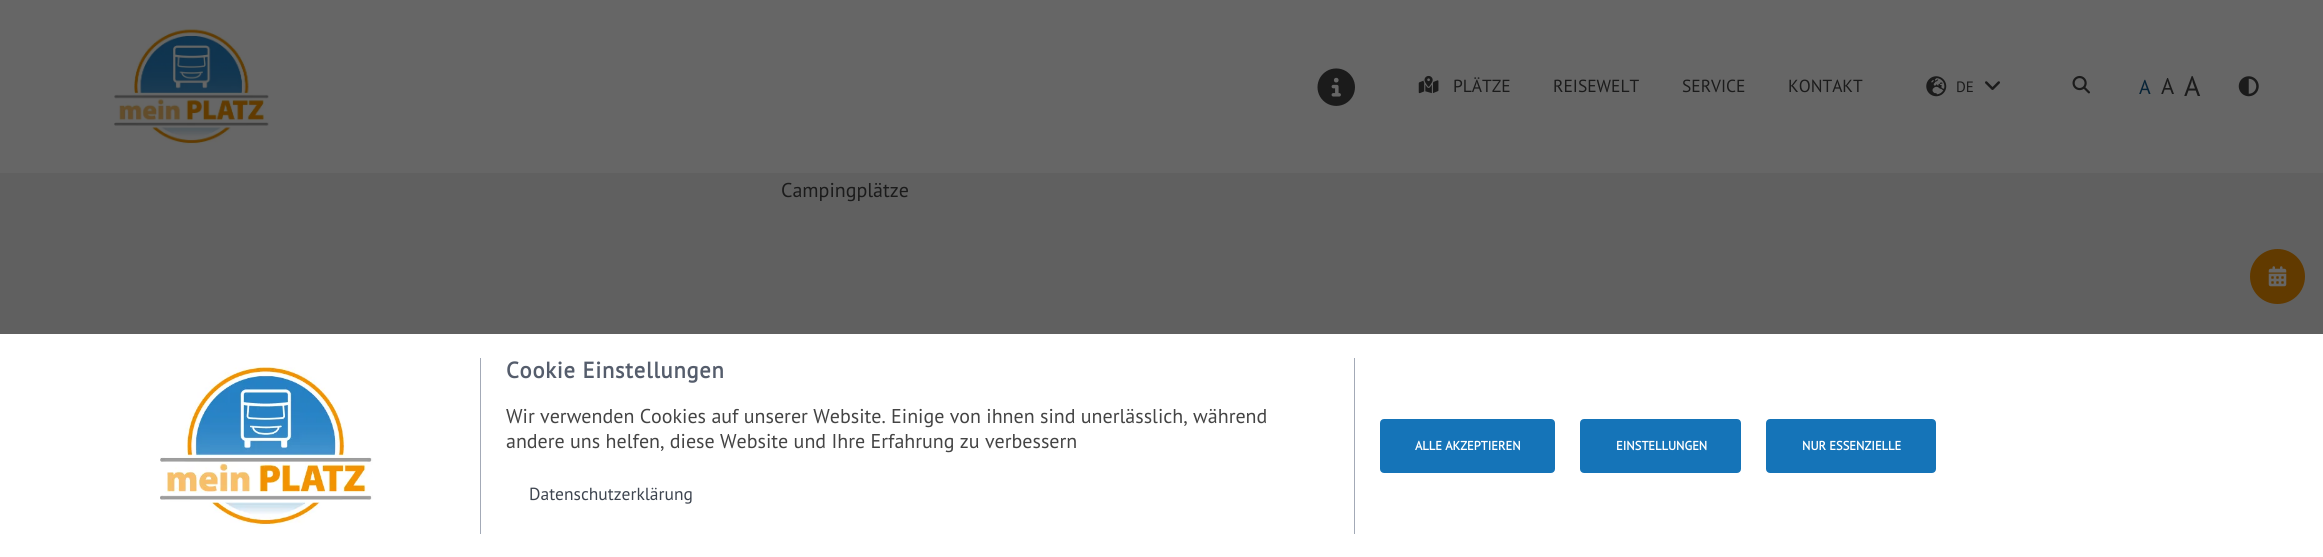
#include <cairo/cairo.h>
#include <math.h>
#include <stddef.h>


static void draw_spaced(cairo_t *cr, double x, double y, const char *s, double letter, double word) {
  cairo_move_to(cr, x, y);
  while (*s) {
    char ch[5] = {0};
    int n = 0;
    do ch[n++] = *s++; while ((*s & 0xC0) == 0x80);
    cairo_show_text(cr, ch);
    cairo_rel_move_to(cr, letter + word * (*ch == ' '), 0);
  }
}

static void rounded_rect(cairo_t *cr, double x, double y, double w, double h, double r) {
  cairo_new_sub_path(cr);
  cairo_arc(cr, x + w - r, y + h - r, r, 0, M_PI / 2);
  cairo_arc(cr, x + r, y + h - r, r, M_PI / 2, M_PI);
  cairo_arc(cr, x + r, y + r, r, M_PI, 1.5 * M_PI);
  cairo_arc(cr, x + w - r, y + r, r, 1.5 * M_PI, 2 * M_PI);
  cairo_close_path(cr);
}

static void draw_image(cairo_t *cr, const char *path, double x, double y, double w, double h) {
  cairo_surface_t *image = cairo_image_surface_create_from_png(path);
  cairo_save(cr);
  cairo_set_source_surface(cr, image, x, y);
  cairo_rectangle(cr, x, y, w, h);
  cairo_fill(cr);
  cairo_restore(cr);
  cairo_surface_destroy(image);
}

static void draw(cairo_t *cr) {
  cairo_set_source_rgb(cr, 96 / 255.0, 96 / 255.0, 96 / 255.0);
  cairo_paint(cr);
  cairo_set_source_rgb(cr, 102 / 255.0, 102 / 255.0, 102 / 255.0);
  cairo_rectangle(cr, 0, 0, 2323, 173);
  cairo_fill(cr);
  draw_image(cr, "images/1.png", 114, 28, 155, 117);
  draw_image(cr, "images/2.png", 1317, 68, 38, 38);
  draw_image(cr, "images/3.png", 1418, 75, 21, 19);
  draw_image(cr, "images/4.png", 1926, 76, 21, 21);
  draw_image(cr, "images/5.png", 1985, 81, 15, 9);
  draw_image(cr, "images/6.png", 2072, 75, 18, 19);
  draw_image(cr, "images/7.png", 2238, 76, 21, 21);
  cairo_set_source_rgb(cr, 97 / 255.0, 58 / 255.0, 0);
  cairo_arc(cr, 2277.5, 276.5, 27.5, 0, 2 * M_PI);
  cairo_fill(cr);
  draw_image(cr, "images/8.png", 2268, 266, 19, 21);
  cairo_set_source_rgb(cr, 1, 1, 1);
  cairo_rectangle(cr, 0, 334, 2323, 223);
  cairo_fill(cr);
  draw_image(cr, "images/9.png", 160, 367, 213, 160);
  cairo_set_source_rgb(cr, 163 / 255.0, 170 / 255.0, 183 / 255.0);
  cairo_rectangle(cr, 1354, 358, 1, 176);
  cairo_fill(cr);
  cairo_rectangle(cr, 480, 358, 1, 176);
  cairo_fill(cr);
  cairo_set_source_rgb(cr, 21 / 255.0, 116 / 255.0, 184 / 255.0);
  rounded_rect(cr, 1381.5, 420.5, 172, 51, 2.5);
  cairo_fill_preserve(cr);
  cairo_set_line_width(cr, 3);
  cairo_stroke(cr);
  rounded_rect(cr, 1581.5, 420.5, 158, 51, 2.5);
  cairo_fill_preserve(cr);
  cairo_stroke(cr);
  rounded_rect(cr, 1767.5, 420.5, 167, 51, 2.5);
  cairo_fill_preserve(cr);
  cairo_stroke(cr);
  cairo_select_font_face(cr, "PT Sans", CAIRO_FONT_SLANT_NORMAL, CAIRO_FONT_WEIGHT_NORMAL);
  cairo_set_font_size(cr, 17.5);
  cairo_set_source_rgb(cr, 27 / 255.0, 27 / 255.0, 27 / 255.0);
  cairo_move_to(cr, 1453, 92);
  cairo_show_text(cr, "PLÄTZE");
  cairo_move_to(cr, 1553, 92);
  cairo_show_text(cr, "REISEWELT");
  cairo_move_to(cr, 1682, 92);
  cairo_show_text(cr, "SERVICE");
  cairo_move_to(cr, 1788, 92);
  cairo_show_text(cr, "KONTAKT");
  cairo_set_font_size(cr, 15);
  cairo_move_to(cr, 1956, 92);
  cairo_show_text(cr, "DE");
  cairo_set_font_size(cr, 20);
  cairo_set_source_rgb(cr, 6 / 255.0, 35 / 255.0, 55 / 255.0);
  cairo_move_to(cr, 2139, 94);
  cairo_show_text(cr, "A");
  cairo_set_font_size(cr, 22.5);
  cairo_set_source_rgb(cr, 27 / 255.0, 27 / 255.0, 27 / 255.0);
  cairo_move_to(cr, 2161, 94);
  cairo_show_text(cr, "A");
  cairo_set_font_size(cr, 28);
  cairo_move_to(cr, 2184, 96);
  cairo_show_text(cr, "A");
  cairo_set_font_size(cr, 20);
  cairo_move_to(cr, 781, 197);
  cairo_show_text(cr, "Campingplätze");
  cairo_select_font_face(cr, "PT Sans", CAIRO_FONT_SLANT_NORMAL, CAIRO_FONT_WEIGHT_BOLD);
  cairo_set_font_size(cr, 22.5);
  cairo_set_source_rgb(cr, 85 / 255.0, 93 / 255.0, 108 / 255.0);
  draw_spaced(cr, 506, 378, "Cookie Einstellungen", 0.75, 0);
  cairo_select_font_face(cr, "PT Sans", CAIRO_FONT_SLANT_NORMAL, CAIRO_FONT_WEIGHT_NORMAL);
  cairo_set_font_size(cr, 20);
  cairo_set_source_rgb(cr, 68 / 255.0, 68 / 255.0, 68 / 255.0);
  cairo_move_to(cr, 506, 423);
  cairo_show_text(cr, "Wir verwenden Cookies auf unserer Website. Einige von ihnen sind unerlässlich, während");
  cairo_move_to(cr, 506, 448);
  cairo_show_text(cr, "andere uns helfen, diese Website und Ihre Erfahrung zu verbessern");
  cairo_set_font_size(cr, 17.5);
  cairo_set_source_rgb(cr, 62 / 255.0, 69 / 255.0, 80 / 255.0);
  cairo_move_to(cr, 529, 500);
  cairo_show_text(cr, "Datenschutzerklärung");
  cairo_select_font_face(cr, "PT Sans", CAIRO_FONT_SLANT_NORMAL, CAIRO_FONT_WEIGHT_BOLD);
  cairo_set_font_size(cr, 12.5);
  cairo_set_source_rgb(cr, 1, 1, 1);
  cairo_move_to(cr, 1415, 450);
  cairo_show_text(cr, "ALLE AKZEPTIEREN");
  cairo_move_to(cr, 1616, 450);
  cairo_show_text(cr, "EINSTELLUNGEN");
  cairo_move_to(cr, 1802, 450);
  cairo_show_text(cr, "NUR ESSENZIELLE");
}

int main(void) {
  cairo_surface_t *surface = cairo_image_surface_create(CAIRO_FORMAT_RGB24, 2323, 557);
  cairo_t *cr = cairo_create(surface);
  cairo_font_options_t *options = cairo_font_options_create();
  cairo_font_options_set_hint_metrics(options, CAIRO_HINT_METRICS_OFF);
  cairo_font_options_set_hint_style(options, CAIRO_HINT_STYLE_NONE);
  cairo_set_font_options(cr, options);
  cairo_set_miter_limit(cr, 4);
  draw(cr);
  cairo_surface_write_to_png(surface, "out.png");
  cairo_font_options_destroy(options);
  cairo_destroy(cr);
  cairo_surface_destroy(surface);
  return 0;
}
